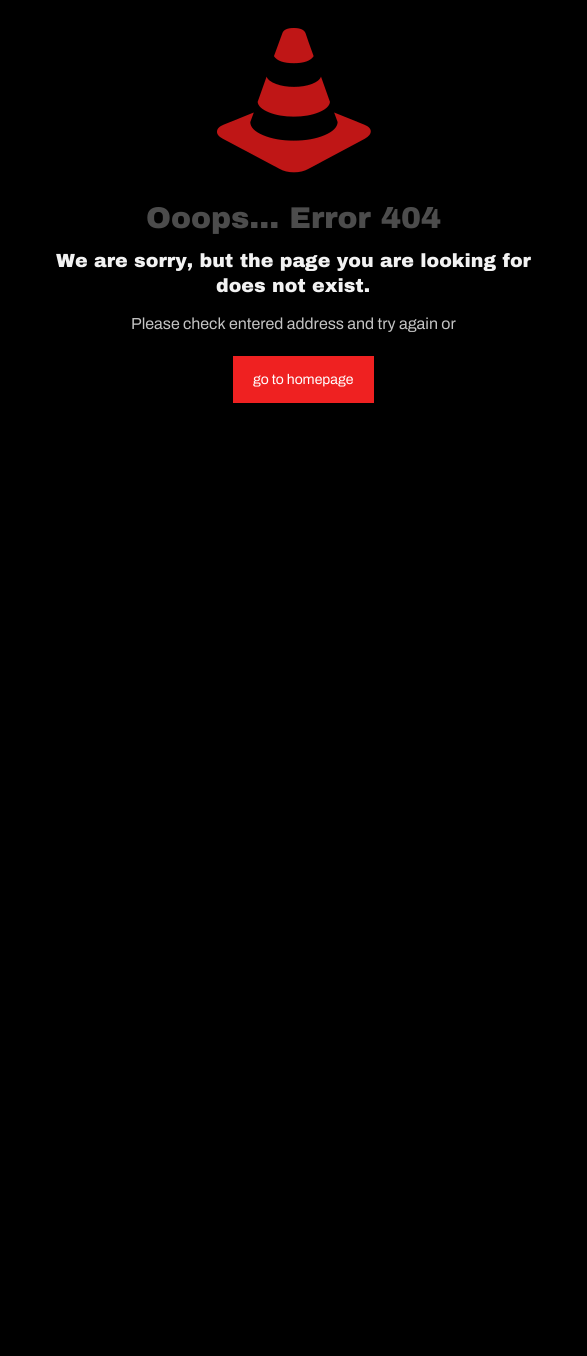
#include <cairo/cairo.h>
#include <math.h>
#include <stddef.h>


static void draw_image(cairo_t *cr, const char *path, double x, double y, double w, double h) {
  cairo_surface_t *image = cairo_image_surface_create_from_png(path);
  cairo_save(cr);
  cairo_set_source_surface(cr, image, x, y);
  cairo_rectangle(cr, x, y, w, h);
  cairo_fill(cr);
  cairo_restore(cr);
  cairo_surface_destroy(image);
}

static void draw(cairo_t *cr) {
  cairo_set_source_rgb(cr, 0, 0, 0);
  cairo_paint(cr);
  draw_image(cr, "images/1.png", 217, 28, 154, 145);
  cairo_set_source_rgb(cr, 239 / 255.0, 33 / 255.0, 33 / 255.0);
  cairo_rectangle(cr, 233, 356, 141, 47);
  cairo_fill(cr);
  cairo_select_font_face(cr, "Archivo Black Black", CAIRO_FONT_SLANT_NORMAL, CAIRO_FONT_WEIGHT_NORMAL);
  cairo_set_font_size(cr, 30);
  cairo_set_source_rgb(cr, 76 / 255.0, 76 / 255.0, 76 / 255.0);
  cairo_move_to(cr, 146, 228);
  cairo_show_text(cr, "Ooops... Error 404");
  cairo_set_font_size(cr, 19);
  cairo_set_source_rgb(cr, 242 / 255.0, 242 / 255.0, 242 / 255.0);
  cairo_move_to(cr, 56, 267);
  cairo_show_text(cr, "We are sorry, but the page you are looking for");
  cairo_move_to(cr, 216, 292);
  cairo_show_text(cr, "does not exist.");
  cairo_select_font_face(cr, "Archivo", CAIRO_FONT_SLANT_NORMAL, CAIRO_FONT_WEIGHT_NORMAL);
  cairo_set_font_size(cr, 16);
  cairo_set_source_rgb(cr, 195 / 255.0, 195 / 255.0, 195 / 255.0);
  cairo_move_to(cr, 131, 329);
  cairo_show_text(cr, "Please check entered address and try again or");
  cairo_set_font_size(cr, 14);
  cairo_set_source_rgb(cr, 1, 1, 1);
  cairo_move_to(cr, 253, 384);
  cairo_show_text(cr, "go to homepage");
}

int main(void) {
  cairo_surface_t *surface = cairo_image_surface_create(CAIRO_FORMAT_RGB24, 587, 1356);
  cairo_t *cr = cairo_create(surface);
  cairo_font_options_t *options = cairo_font_options_create();
  cairo_font_options_set_hint_metrics(options, CAIRO_HINT_METRICS_OFF);
  cairo_font_options_set_hint_style(options, CAIRO_HINT_STYLE_NONE);
  cairo_set_font_options(cr, options);
  cairo_set_miter_limit(cr, 4);
  draw(cr);
  cairo_surface_write_to_png(surface, "out.png");
  cairo_font_options_destroy(options);
  cairo_destroy(cr);
  cairo_surface_destroy(surface);
  return 0;
}
